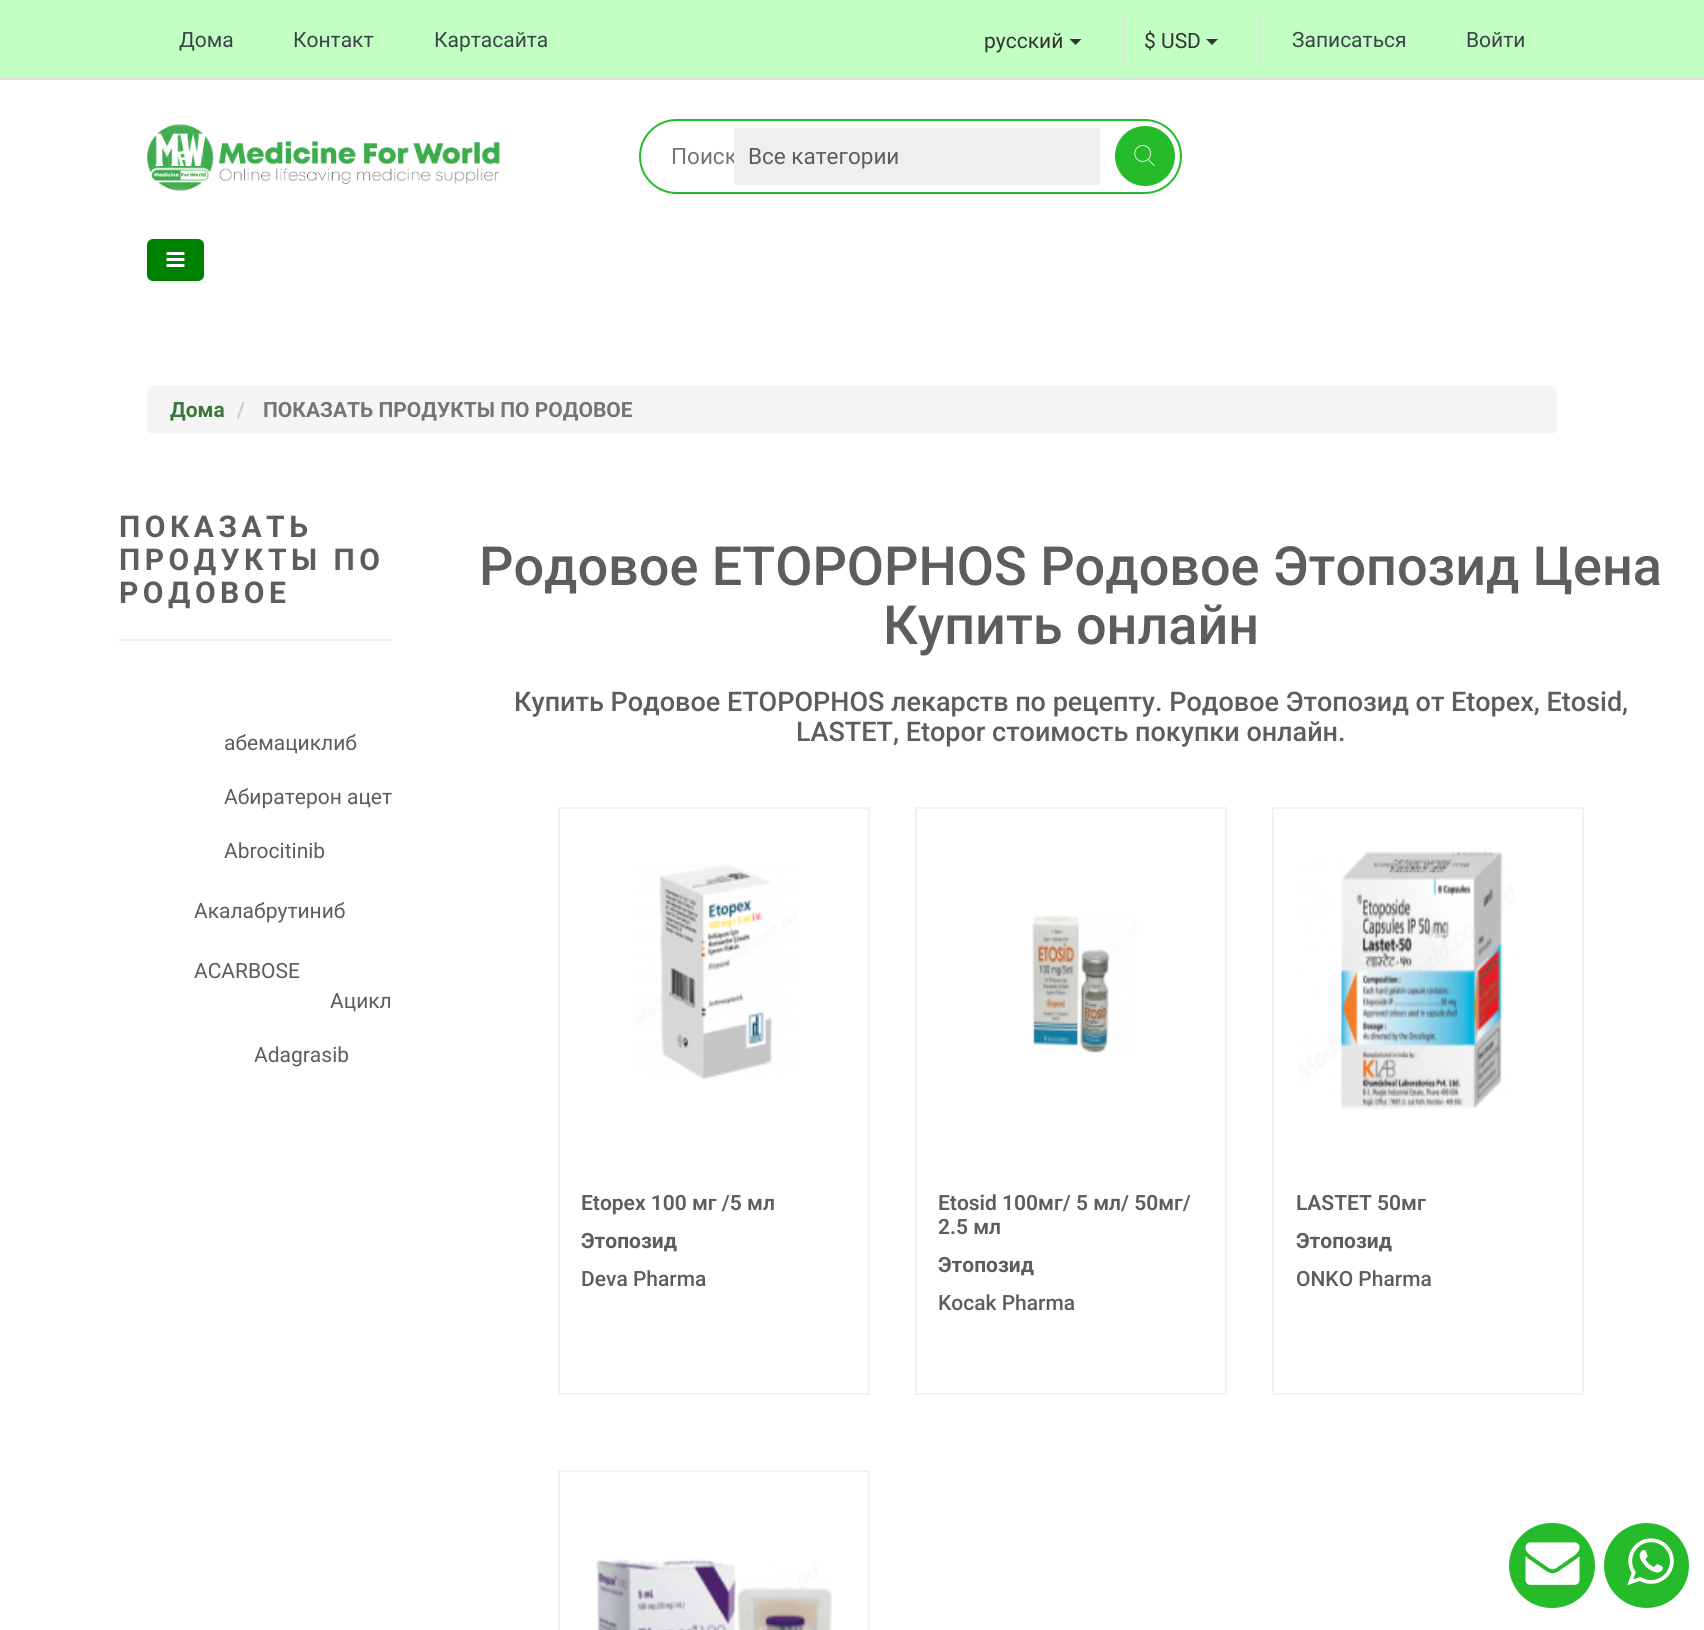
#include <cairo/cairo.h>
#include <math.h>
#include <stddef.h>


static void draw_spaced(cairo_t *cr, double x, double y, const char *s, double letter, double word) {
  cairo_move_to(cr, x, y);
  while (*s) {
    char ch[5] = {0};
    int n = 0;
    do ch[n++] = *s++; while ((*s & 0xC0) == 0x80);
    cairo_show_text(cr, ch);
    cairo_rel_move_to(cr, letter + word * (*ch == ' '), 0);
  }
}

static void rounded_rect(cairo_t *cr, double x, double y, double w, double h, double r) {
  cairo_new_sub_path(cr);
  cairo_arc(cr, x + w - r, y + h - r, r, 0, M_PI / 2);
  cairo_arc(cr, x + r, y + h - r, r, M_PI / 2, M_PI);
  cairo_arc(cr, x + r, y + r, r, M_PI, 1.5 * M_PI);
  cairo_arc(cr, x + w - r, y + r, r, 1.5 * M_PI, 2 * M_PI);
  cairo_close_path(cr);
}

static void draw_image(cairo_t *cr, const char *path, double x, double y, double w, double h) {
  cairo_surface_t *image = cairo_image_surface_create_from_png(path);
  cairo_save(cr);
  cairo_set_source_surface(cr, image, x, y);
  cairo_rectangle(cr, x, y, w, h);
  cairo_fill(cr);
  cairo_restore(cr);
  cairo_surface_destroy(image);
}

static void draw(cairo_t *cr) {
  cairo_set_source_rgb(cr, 1, 1, 1);
  cairo_paint(cr);
  cairo_set_source_rgb(cr, 193 / 255.0, 1, 195 / 255.0);
  cairo_rectangle(cr, 0, 0, 1704, 78);
  cairo_fill(cr);
  cairo_set_source_rgb(cr, 222 / 255.0, 222 / 255.0, 222 / 255.0);
  cairo_rectangle(cr, 0, 78, 1704, 2);
  cairo_fill(cr);
  cairo_set_source_rgb(cr, 226 / 255.0, 226 / 255.0, 226 / 255.0);
  cairo_rectangle(cr, 1124, 15, 2, 53);
  cairo_fill(cr);
  cairo_set_source_rgb(cr, 51 / 255.0, 51 / 255.0, 51 / 255.0);
  cairo_new_path(cr);
  cairo_move_to(cr, 1069.5, 39);
  cairo_line_to(cr, 1081.5, 39);
  cairo_line_to(cr, 1075.5, 45);
  cairo_close_path(cr);
  cairo_fill(cr);
  cairo_set_source_rgb(cr, 226 / 255.0, 226 / 255.0, 226 / 255.0);
  cairo_rectangle(cr, 1260, 15, 2, 51);
  cairo_fill(cr);
  cairo_set_source_rgb(cr, 51 / 255.0, 51 / 255.0, 51 / 255.0);
  cairo_new_path(cr);
  cairo_move_to(cr, 1206, 39);
  cairo_line_to(cr, 1218, 39);
  cairo_line_to(cr, 1212, 45);
  cairo_close_path(cr);
  cairo_fill(cr);
  draw_image(cr, "images/1.png", 147, 124, 353, 67);
  rounded_rect(cr, 640, 120, 541, 73, 36.5);
  cairo_set_source_rgb(cr, 37 / 255.0, 187 / 255.0, 43 / 255.0);
  cairo_stroke(cr);
  cairo_arc(cr, 1145, 156, 30, 0, 2 * M_PI);
  cairo_fill(cr);
  draw_image(cr, "images/2.png", 1134, 145, 21, 22);
  cairo_set_source_rgb(cr, 0, 128 / 255.0, 0);
  rounded_rect(cr, 147, 239, 57, 42, 6);
  cairo_fill(cr);
  draw_image(cr, "images/3.png", 166, 252, 19, 15);
  cairo_set_source_rgb(cr, 245 / 255.0, 245 / 255.0, 245 / 255.0);
  rounded_rect(cr, 147, 386, 1410, 48, 6);
  cairo_fill(cr);
  cairo_set_source_rgb(cr, 238 / 255.0, 238 / 255.0, 238 / 255.0);
  cairo_rectangle(cr, 119, 639, 273, 2);
  cairo_fill(cr);
  cairo_rectangle(cr, 559, 808, 310, 586);
  cairo_set_source_rgb(cr, 242 / 255.0, 242 / 255.0, 242 / 255.0);
  cairo_stroke(cr);
  draw_image(cr, "images/4.png", 634, 864, 163, 216);
  cairo_rectangle(cr, 916, 808, 310, 586);
  cairo_stroke(cr);
  draw_image(cr, "images/5.png", 1031, 915, 106, 139);
  cairo_rectangle(cr, 1273, 808, 310, 586);
  cairo_stroke(cr);
  draw_image(cr, "images/6.png", 1298, 851, 217, 258);
  cairo_rectangle(cr, 559, 1471, 310, 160);
  cairo_stroke(cr);
  draw_image(cr, "images/7.png", 596, 1559, 236, 71);
  cairo_set_source_rgb(cr, 37 / 255.0, 187 / 255.0, 43 / 255.0);
  rounded_rect(cr, 1509, 1523, 86, 85, 42.5);
  cairo_fill(cr);
  draw_image(cr, "images/8.png", 1525, 1542, 55, 43);
  cairo_arc(cr, 1646.5, 1565.5, 42.5, 0, 2 * M_PI);
  cairo_fill(cr);
  draw_image(cr, "images/9.png", 1627, 1538, 47, 47);
  cairo_select_font_face(cr, "Roboto", CAIRO_FONT_SLANT_NORMAL, CAIRO_FONT_WEIGHT_NORMAL);
  cairo_set_font_size(cr, 21);
  cairo_set_source_rgb(cr, 61 / 255.0, 68 / 255.0, 72 / 255.0);
  cairo_move_to(cr, 179, 47);
  cairo_show_text(cr, "Дома");
  cairo_move_to(cr, 293, 47);
  cairo_show_text(cr, "Контакт");
  cairo_move_to(cr, 434, 47);
  cairo_show_text(cr, "Картасайта");
  cairo_set_source_rgb(cr, 51 / 255.0, 51 / 255.0, 51 / 255.0);
  cairo_move_to(cr, 984, 48);
  cairo_show_text(cr, "русский");
  cairo_move_to(cr, 1144, 48);
  cairo_show_text(cr, "$ USD");
  cairo_set_source_rgb(cr, 61 / 255.0, 68 / 255.0, 72 / 255.0);
  cairo_move_to(cr, 1292, 47);
  cairo_show_text(cr, "Записаться");
  cairo_move_to(cr, 1466, 47);
  cairo_show_text(cr, "Войти");
  cairo_set_font_size(cr, 22.5);
  cairo_set_source_rgb(cr, 117 / 255.0, 117 / 255.0, 117 / 255.0);
  cairo_move_to(cr, 671, 164);
  cairo_show_text(cr, "Поиск");
  cairo_set_source_rgb(cr, 239 / 255.0, 239 / 255.0, 239 / 255.0);
  rounded_rect(cr, 734, 128, 366, 57, 3);
  cairo_fill(cr);
  cairo_set_source_rgb(cr, 93 / 255.0, 93 / 255.0, 93 / 255.0);
  cairo_move_to(cr, 748, 164);
  cairo_show_text(cr, "Все категории");
  cairo_select_font_face(cr, "Roboto", CAIRO_FONT_SLANT_NORMAL, CAIRO_FONT_WEIGHT_BOLD);
  cairo_set_font_size(cr, 21);
  cairo_set_source_rgb(cr, 60 / 255.0, 118 / 255.0, 61 / 255.0);
  cairo_move_to(cr, 170, 417);
  cairo_show_text(cr, "Дома");
  cairo_set_source_rgb(cr, 204 / 255.0, 204 / 255.0, 204 / 255.0);
  cairo_move_to(cr, 237, 417);
  cairo_show_text(cr, "/");
  cairo_set_source_rgb(cr, 117 / 255.0, 117 / 255.0, 117 / 255.0);
  cairo_move_to(cr, 263, 417);
  cairo_show_text(cr, "ПОКАЗАТЬ ПРОДУКТЫ ПО РОДОВОЕ");
  cairo_set_font_size(cr, 30);
  cairo_set_source_rgb(cr, 93 / 255.0, 93 / 255.0, 93 / 255.0);
  draw_spaced(cr, 119, 537, "ПОКАЗАТЬ", 4.5, 0);
  draw_spaced(cr, 119, 570, "ПРОДУКТЫ ПО", 4.5, 0);
  draw_spaced(cr, 119, 603, "РОДОВОЕ", 4.5, 0);
  cairo_select_font_face(cr, "Roboto", CAIRO_FONT_SLANT_NORMAL, CAIRO_FONT_WEIGHT_NORMAL);
  cairo_set_font_size(cr, 21);
  cairo_move_to(cr, 224, 750);
  cairo_show_text(cr, "абемациклиб");
  cairo_move_to(cr, 224, 804);
  cairo_show_text(cr, "Абиратерон ацет");
  cairo_move_to(cr, 224, 858);
  cairo_show_text(cr, "Abrocitinib");
  cairo_move_to(cr, 194, 918);
  cairo_show_text(cr, "Акалабрутиниб");
  cairo_move_to(cr, 194, 978);
  cairo_show_text(cr, "ACARBOSE");
  cairo_move_to(cr, 330, 1008);
  cairo_show_text(cr, "Ацикл");
  cairo_move_to(cr, 254, 1062);
  cairo_show_text(cr, "Adagrasib");
  cairo_select_font_face(cr, "Roboto Medium", CAIRO_FONT_SLANT_NORMAL, CAIRO_FONT_WEIGHT_NORMAL);
  cairo_set_font_size(cr, 54);
  cairo_move_to(cr, 479, 585);
  cairo_show_text(cr, "Родовое ETOPOPHOS Родовое Этопозид Цена");
  cairo_move_to(cr, 883, 644);
  cairo_show_text(cr, "Купить онлайн");
  cairo_set_font_size(cr, 27);
  cairo_move_to(cr, 514, 711);
  cairo_show_text(cr, "Купить Родовое ETOPOPHOS лекарств по рецепту. Родовое Этопозид от Etopex, Etosid,");
  cairo_move_to(cr, 796, 741);
  cairo_show_text(cr, "LASTET, Etopor стоимость покупки онлайн.");
  cairo_select_font_face(cr, "Roboto SemiBold", CAIRO_FONT_SLANT_NORMAL, CAIRO_FONT_WEIGHT_NORMAL);
  cairo_set_font_size(cr, 21);
  cairo_move_to(cr, 581, 1210);
  cairo_show_text(cr, "Etopex 100 мг /5 мл");
  cairo_select_font_face(cr, "Roboto", CAIRO_FONT_SLANT_NORMAL, CAIRO_FONT_WEIGHT_BOLD);
  cairo_move_to(cr, 581, 1248);
  cairo_show_text(cr, "Этопозид");
  cairo_select_font_face(cr, "Roboto Medium", CAIRO_FONT_SLANT_NORMAL, CAIRO_FONT_WEIGHT_NORMAL);
  cairo_move_to(cr, 581, 1286);
  cairo_show_text(cr, "Deva Pharma");
  cairo_select_font_face(cr, "Roboto SemiBold", CAIRO_FONT_SLANT_NORMAL, CAIRO_FONT_WEIGHT_NORMAL);
  cairo_move_to(cr, 938, 1210);
  cairo_show_text(cr, "Etosid 100мг/ 5 мл/ 50мг/");
  cairo_move_to(cr, 938, 1234);
  cairo_show_text(cr, "2.5 мл");
  cairo_select_font_face(cr, "Roboto", CAIRO_FONT_SLANT_NORMAL, CAIRO_FONT_WEIGHT_BOLD);
  cairo_move_to(cr, 938, 1272);
  cairo_show_text(cr, "Этопозид");
  cairo_select_font_face(cr, "Roboto Medium", CAIRO_FONT_SLANT_NORMAL, CAIRO_FONT_WEIGHT_NORMAL);
  cairo_move_to(cr, 938, 1310);
  cairo_show_text(cr, "Kocak Pharma");
  cairo_select_font_face(cr, "Roboto SemiBold", CAIRO_FONT_SLANT_NORMAL, CAIRO_FONT_WEIGHT_NORMAL);
  cairo_move_to(cr, 1296, 1210);
  cairo_show_text(cr, "LASTET 50мг");
  cairo_select_font_face(cr, "Roboto", CAIRO_FONT_SLANT_NORMAL, CAIRO_FONT_WEIGHT_BOLD);
  cairo_move_to(cr, 1296, 1248);
  cairo_show_text(cr, "Этопозид");
  cairo_select_font_face(cr, "Roboto Medium", CAIRO_FONT_SLANT_NORMAL, CAIRO_FONT_WEIGHT_NORMAL);
  cairo_move_to(cr, 1296, 1286);
  cairo_show_text(cr, "ONKO Pharma");
}

int main(void) {
  cairo_surface_t *surface = cairo_image_surface_create(CAIRO_FORMAT_RGB24, 1704, 1630);
  cairo_t *cr = cairo_create(surface);
  cairo_font_options_t *options = cairo_font_options_create();
  cairo_font_options_set_hint_metrics(options, CAIRO_HINT_METRICS_OFF);
  cairo_font_options_set_hint_style(options, CAIRO_HINT_STYLE_NONE);
  cairo_set_font_options(cr, options);
  cairo_set_miter_limit(cr, 4);
  draw(cr);
  cairo_surface_write_to_png(surface, "out.png");
  cairo_font_options_destroy(options);
  cairo_destroy(cr);
  cairo_surface_destroy(surface);
  return 0;
}
